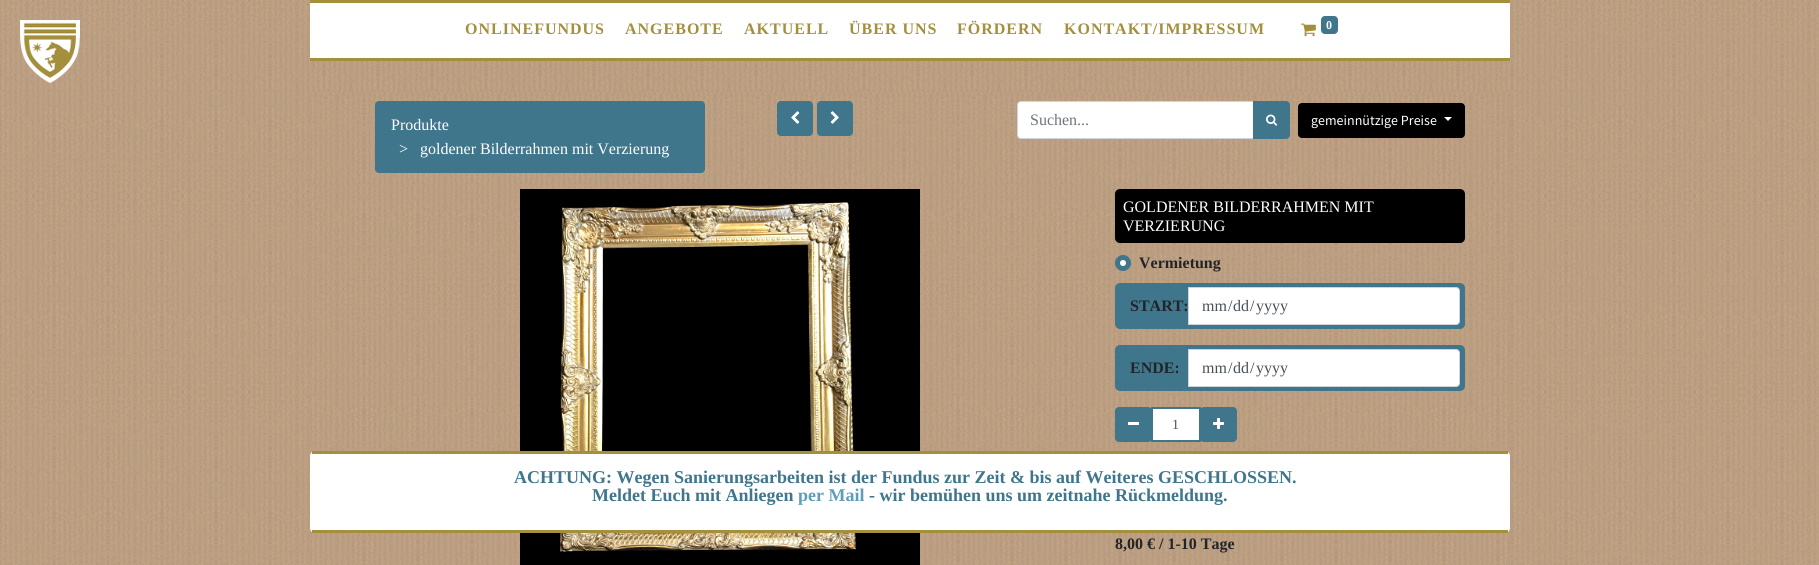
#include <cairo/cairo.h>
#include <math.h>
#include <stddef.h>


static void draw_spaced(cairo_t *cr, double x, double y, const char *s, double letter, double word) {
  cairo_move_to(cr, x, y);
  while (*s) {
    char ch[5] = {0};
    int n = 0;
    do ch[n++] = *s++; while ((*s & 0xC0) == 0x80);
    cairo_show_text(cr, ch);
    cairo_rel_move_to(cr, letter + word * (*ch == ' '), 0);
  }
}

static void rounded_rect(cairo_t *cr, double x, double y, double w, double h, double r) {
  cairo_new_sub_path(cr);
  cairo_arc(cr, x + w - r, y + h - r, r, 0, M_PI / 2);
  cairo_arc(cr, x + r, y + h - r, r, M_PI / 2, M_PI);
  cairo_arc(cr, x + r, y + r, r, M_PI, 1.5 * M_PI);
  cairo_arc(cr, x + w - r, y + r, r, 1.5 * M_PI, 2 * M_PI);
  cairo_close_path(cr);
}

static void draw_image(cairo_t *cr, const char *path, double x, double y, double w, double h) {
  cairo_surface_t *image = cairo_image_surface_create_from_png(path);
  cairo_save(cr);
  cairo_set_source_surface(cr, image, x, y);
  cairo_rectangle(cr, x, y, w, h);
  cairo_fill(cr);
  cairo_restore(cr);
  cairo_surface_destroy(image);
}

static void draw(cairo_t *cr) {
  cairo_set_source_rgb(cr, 1, 1, 1);
  cairo_paint(cr);
  draw_image(cr, "images/1.png", 0, 0, 1819, 565);
  cairo_set_source_rgb(cr, 1, 1, 1);
  cairo_rectangle(cr, 310, 3, 1200, 55);
  cairo_fill(cr);
  cairo_set_source_rgb(cr, 164 / 255.0, 143 / 255.0, 60 / 255.0);
  cairo_rectangle(cr, 310, 0, 1200, 3);
  cairo_fill(cr);
  cairo_rectangle(cr, 310, 58, 1200, 3);
  cairo_fill(cr);
  draw_image(cr, "images/2.png", 20, 20, 60, 63);
  draw_image(cr, "images/3.png", 1301, 23, 15, 14);
  cairo_set_source_rgb(cr, 63 / 255.0, 118 / 255.0, 140 / 255.0);
  rounded_rect(cr, 1321, 16, 17, 18, 4);
  cairo_fill(cr);
  draw_image(cr, "images/4.png", 310, 93, 1200, 472);
  rounded_rect(cr, 375, 101, 330, 72, 4);
  cairo_fill(cr);
  rounded_rect(cr, 777, 101, 36, 35, 4);
  cairo_fill(cr);
  draw_image(cr, "images/5.png", 791, 111, 9, 13);
  rounded_rect(cr, 817, 101, 36, 35, 4);
  cairo_fill(cr);
  draw_image(cr, "images/6.png", 830, 111, 9, 13);
  cairo_set_source_rgb(cr, 1, 1, 1);
  cairo_new_path(cr);
  cairo_move_to(cr, 1021, 101.5);
  cairo_line_to(cr, 1253.5, 101.5);
  cairo_line_to(cr, 1253.5, 138.5);
  cairo_line_to(cr, 1021, 138.5);
  cairo_curve_to(cr, 1019, 138.5, 1017.5, 137, 1017.5, 135);
  cairo_line_to(cr, 1017.5, 105);
  cairo_curve_to(cr, 1017.5, 103, 1019, 101.5, 1021, 101.5);
  cairo_close_path(cr);
  cairo_fill_preserve(cr);
  cairo_set_source_rgb(cr, 206 / 255.0, 212 / 255.0, 218 / 255.0);
  cairo_set_line_width(cr, 1);
  cairo_stroke(cr);
  cairo_set_source_rgb(cr, 63 / 255.0, 118 / 255.0, 140 / 255.0);
  cairo_new_path(cr);
  cairo_move_to(cr, 1253, 101);
  cairo_line_to(cr, 1286, 101);
  cairo_curve_to(cr, 1288, 101, 1290, 103, 1290, 105);
  cairo_line_to(cr, 1290, 135);
  cairo_curve_to(cr, 1290, 137, 1288, 139, 1286, 139);
  cairo_line_to(cr, 1253, 139);
  cairo_close_path(cr);
  cairo_fill(cr);
  draw_image(cr, "images/7.png", 1266, 114, 12, 12);
  cairo_set_source_rgb(cr, 0, 0, 0);
  rounded_rect(cr, 1298, 103, 167, 35, 4);
  cairo_fill(cr);
  cairo_set_source_rgb(cr, 1, 1, 1);
  cairo_new_path(cr);
  cairo_move_to(cr, 1444, 117);
  cairo_line_to(cr, 1452, 117);
  cairo_line_to(cr, 1448, 121);
  cairo_close_path(cr);
  cairo_fill(cr);
  draw_image(cr, "images/8.png", 520, 189, 400, 376);
  cairo_set_source_rgb(cr, 0, 0, 0);
  rounded_rect(cr, 1115, 189, 350, 54, 5);
  cairo_fill(cr);
  cairo_set_source_rgb(cr, 63 / 255.0, 118 / 255.0, 140 / 255.0);
  cairo_arc(cr, 1123, 263, 7.5, 0, 2 * M_PI);
  cairo_fill_preserve(cr);
  cairo_stroke(cr);
  cairo_set_source_rgb(cr, 1, 1, 1);
  cairo_arc(cr, 1123, 263, 3, 0, 2 * M_PI);
  cairo_fill(cr);
  cairo_set_source_rgb(cr, 63 / 255.0, 118 / 255.0, 140 / 255.0);
  rounded_rect(cr, 1115, 283, 350, 46, 5);
  cairo_fill(cr);
  cairo_set_source_rgb(cr, 1, 1, 1);
  cairo_new_path(cr);
  cairo_move_to(cr, 1188.5, 287.5);
  cairo_line_to(cr, 1456, 287.5);
  cairo_curve_to(cr, 1458, 287.5, 1459.5, 289, 1459.5, 291);
  cairo_line_to(cr, 1459.5, 321);
  cairo_curve_to(cr, 1459.5, 323, 1458, 324.5, 1456, 324.5);
  cairo_line_to(cr, 1188.5, 324.5);
  cairo_close_path(cr);
  cairo_fill_preserve(cr);
  cairo_set_source_rgb(cr, 206 / 255.0, 212 / 255.0, 218 / 255.0);
  cairo_stroke(cr);
  cairo_set_source_rgb(cr, 63 / 255.0, 118 / 255.0, 140 / 255.0);
  rounded_rect(cr, 1115, 345, 350, 46, 5);
  cairo_fill(cr);
  cairo_set_source_rgb(cr, 1, 1, 1);
  cairo_new_path(cr);
  cairo_move_to(cr, 1188.5, 349.5);
  cairo_line_to(cr, 1456, 349.5);
  cairo_curve_to(cr, 1458, 349.5, 1459.5, 351, 1459.5, 353);
  cairo_line_to(cr, 1459.5, 383);
  cairo_curve_to(cr, 1459.5, 385, 1458, 386.5, 1456, 386.5);
  cairo_line_to(cr, 1188.5, 386.5);
  cairo_close_path(cr);
  cairo_fill_preserve(cr);
  cairo_set_source_rgb(cr, 206 / 255.0, 212 / 255.0, 218 / 255.0);
  cairo_stroke(cr);
  cairo_set_source_rgb(cr, 1, 1, 1);
  cairo_rectangle(cr, 1152, 408, 48, 33);
  cairo_fill_preserve(cr);
  cairo_set_source_rgb(cr, 63 / 255.0, 118 / 255.0, 140 / 255.0);
  cairo_set_line_width(cr, 2);
  cairo_stroke(cr);
  rounded_rect(cr, 1115, 407, 37, 35, 4);
  cairo_fill(cr);
  cairo_set_source_rgb(cr, 1, 1, 1);
  cairo_rectangle(cr, 1128, 422, 11, 3);
  cairo_fill(cr);
  cairo_set_source_rgb(cr, 63 / 255.0, 118 / 255.0, 140 / 255.0);
  rounded_rect(cr, 1200, 407, 37, 35, 4);
  cairo_fill(cr);
  draw_image(cr, "images/9.png", 1213, 418, 11, 11);
  cairo_set_source_rgb(cr, 1, 1, 1);
  rounded_rect(cr, 310, 451, 1200, 82, 5);
  cairo_fill(cr);
  cairo_set_source_rgb(cr, 164 / 255.0, 143 / 255.0, 60 / 255.0);
  cairo_rectangle(cr, 312, 451, 1196, 3);
  cairo_fill(cr);
  cairo_rectangle(cr, 312, 530, 1196, 3);
  cairo_fill(cr);
  cairo_select_font_face(cr, "Liberation Serif", CAIRO_FONT_SLANT_NORMAL, CAIRO_FONT_WEIGHT_BOLD);
  cairo_set_font_size(cr, 16);
  draw_spaced(cr, 465, 34, "ONLINEFUNDUS", 1, 0);
  draw_spaced(cr, 625, 34, "ANGEBOTE", 1, 0);
  draw_spaced(cr, 744, 34, "AKTUELL", 1, 0);
  draw_spaced(cr, 849, 34, "ÜBER UNS", 1, 0);
  draw_spaced(cr, 957, 34, "FÖRDERN", 1, 0);
  draw_spaced(cr, 1064, 34, "KONTAKT/IMPRESSUM", 1, 0);
  cairo_set_font_size(cr, 12);
  cairo_set_source_rgb(cr, 1, 1, 1);
  draw_spaced(cr, 1326, 29, "0", 1, 0);
  cairo_select_font_face(cr, "Liberation Serif", CAIRO_FONT_SLANT_NORMAL, CAIRO_FONT_WEIGHT_NORMAL);
  cairo_set_font_size(cr, 16);
  cairo_move_to(cr, 391, 130);
  cairo_show_text(cr, "Produkte");
  cairo_move_to(cr, 399, 154);
  cairo_show_text(cr, ">");
  cairo_move_to(cr, 420, 154);
  cairo_show_text(cr, "goldener Bilderrahmen mit Verzierung");
  cairo_set_source_rgb(cr, 108 / 255.0, 117 / 255.0, 125 / 255.0);
  cairo_move_to(cr, 1030, 125);
  cairo_show_text(cr, "Suchen...");
  cairo_select_font_face(cr, "Source Sans Pro", CAIRO_FONT_SLANT_NORMAL, CAIRO_FONT_WEIGHT_NORMAL);
  cairo_set_font_size(cr, 14);
  cairo_set_source_rgb(cr, 1, 1, 1);
  cairo_move_to(cr, 1311, 125);
  cairo_show_text(cr, "gemeinnützige Preise");
  cairo_select_font_face(cr, "Liberation Serif", CAIRO_FONT_SLANT_NORMAL, CAIRO_FONT_WEIGHT_NORMAL);
  cairo_set_font_size(cr, 16);
  cairo_move_to(cr, 1123, 212);
  cairo_show_text(cr, "GOLDENER BILDERRAHMEN MIT");
  cairo_move_to(cr, 1123, 231);
  cairo_show_text(cr, "VERZIERUNG");
  cairo_select_font_face(cr, "Liberation Serif", CAIRO_FONT_SLANT_NORMAL, CAIRO_FONT_WEIGHT_BOLD);
  cairo_set_source_rgb(cr, 33 / 255.0, 37 / 255.0, 41 / 255.0);
  cairo_move_to(cr, 1139, 268);
  cairo_show_text(cr, "Vermietung");
  cairo_move_to(cr, 1130, 311);
  cairo_show_text(cr, "START:");
  cairo_select_font_face(cr, "Liberation Serif", CAIRO_FONT_SLANT_NORMAL, CAIRO_FONT_WEIGHT_NORMAL);
  cairo_set_source_rgb(cr, 73 / 255.0, 80 / 255.0, 87 / 255.0);
  cairo_move_to(cr, 1202, 311);
  cairo_show_text(cr, "mm");
  cairo_move_to(cr, 1228, 311);
  cairo_show_text(cr, "/");
  cairo_move_to(cr, 1233, 311);
  cairo_show_text(cr, "dd");
  cairo_move_to(cr, 1250, 311);
  cairo_show_text(cr, "/");
  cairo_move_to(cr, 1256, 311);
  cairo_show_text(cr, "yyyy");
  cairo_select_font_face(cr, "Liberation Serif", CAIRO_FONT_SLANT_NORMAL, CAIRO_FONT_WEIGHT_BOLD);
  cairo_set_source_rgb(cr, 33 / 255.0, 37 / 255.0, 41 / 255.0);
  cairo_move_to(cr, 1130, 373);
  cairo_show_text(cr, "ENDE:");
  cairo_select_font_face(cr, "Liberation Serif", CAIRO_FONT_SLANT_NORMAL, CAIRO_FONT_WEIGHT_NORMAL);
  cairo_set_source_rgb(cr, 73 / 255.0, 80 / 255.0, 87 / 255.0);
  cairo_move_to(cr, 1202, 373);
  cairo_show_text(cr, "mm");
  cairo_move_to(cr, 1228, 373);
  cairo_show_text(cr, "/");
  cairo_move_to(cr, 1233, 373);
  cairo_show_text(cr, "dd");
  cairo_move_to(cr, 1250, 373);
  cairo_show_text(cr, "/");
  cairo_move_to(cr, 1256, 373);
  cairo_show_text(cr, "yyyy");
  cairo_set_font_size(cr, 14);
  cairo_move_to(cr, 1172, 429);
  cairo_show_text(cr, "1");
  cairo_select_font_face(cr, "Liberation Serif", CAIRO_FONT_SLANT_NORMAL, CAIRO_FONT_WEIGHT_BOLD);
  cairo_set_font_size(cr, 16);
  cairo_set_source_rgb(cr, 33 / 255.0, 37 / 255.0, 41 / 255.0);
  cairo_move_to(cr, 1115, 549);
  cairo_show_text(cr, "8,00 € / 1-10 Tage");
  cairo_set_font_size(cr, 18);
  cairo_set_source_rgb(cr, 63 / 255.0, 118 / 255.0, 140 / 255.0);
  cairo_move_to(cr, 514, 483);
  cairo_show_text(cr, "ACHTUNG: Wegen Sanierungsarbeiten ist der Fundus zur Zeit & bis auf Weiteres GESCHLOSSEN.");
  cairo_move_to(cr, 592, 501);
  cairo_show_text(cr, "Meldet Euch mit Anliegen");
  cairo_set_source_rgb(cr, 96 / 255.0, 158 / 255.0, 183 / 255.0);
  cairo_move_to(cr, 798, 501);
  cairo_show_text(cr, "per Mail");
  cairo_set_source_rgb(cr, 63 / 255.0, 118 / 255.0, 140 / 255.0);
  cairo_move_to(cr, 869, 501);
  cairo_show_text(cr, "- wir bemühen uns um zeitnahe Rückmeldung.");
}

int main(void) {
  cairo_surface_t *surface = cairo_image_surface_create(CAIRO_FORMAT_RGB24, 1819, 565);
  cairo_t *cr = cairo_create(surface);
  cairo_font_options_t *options = cairo_font_options_create();
  cairo_font_options_set_hint_metrics(options, CAIRO_HINT_METRICS_OFF);
  cairo_font_options_set_hint_style(options, CAIRO_HINT_STYLE_NONE);
  cairo_set_font_options(cr, options);
  cairo_set_miter_limit(cr, 4);
  draw(cr);
  cairo_surface_write_to_png(surface, "out.png");
  cairo_font_options_destroy(options);
  cairo_destroy(cr);
  cairo_surface_destroy(surface);
  return 0;
}
